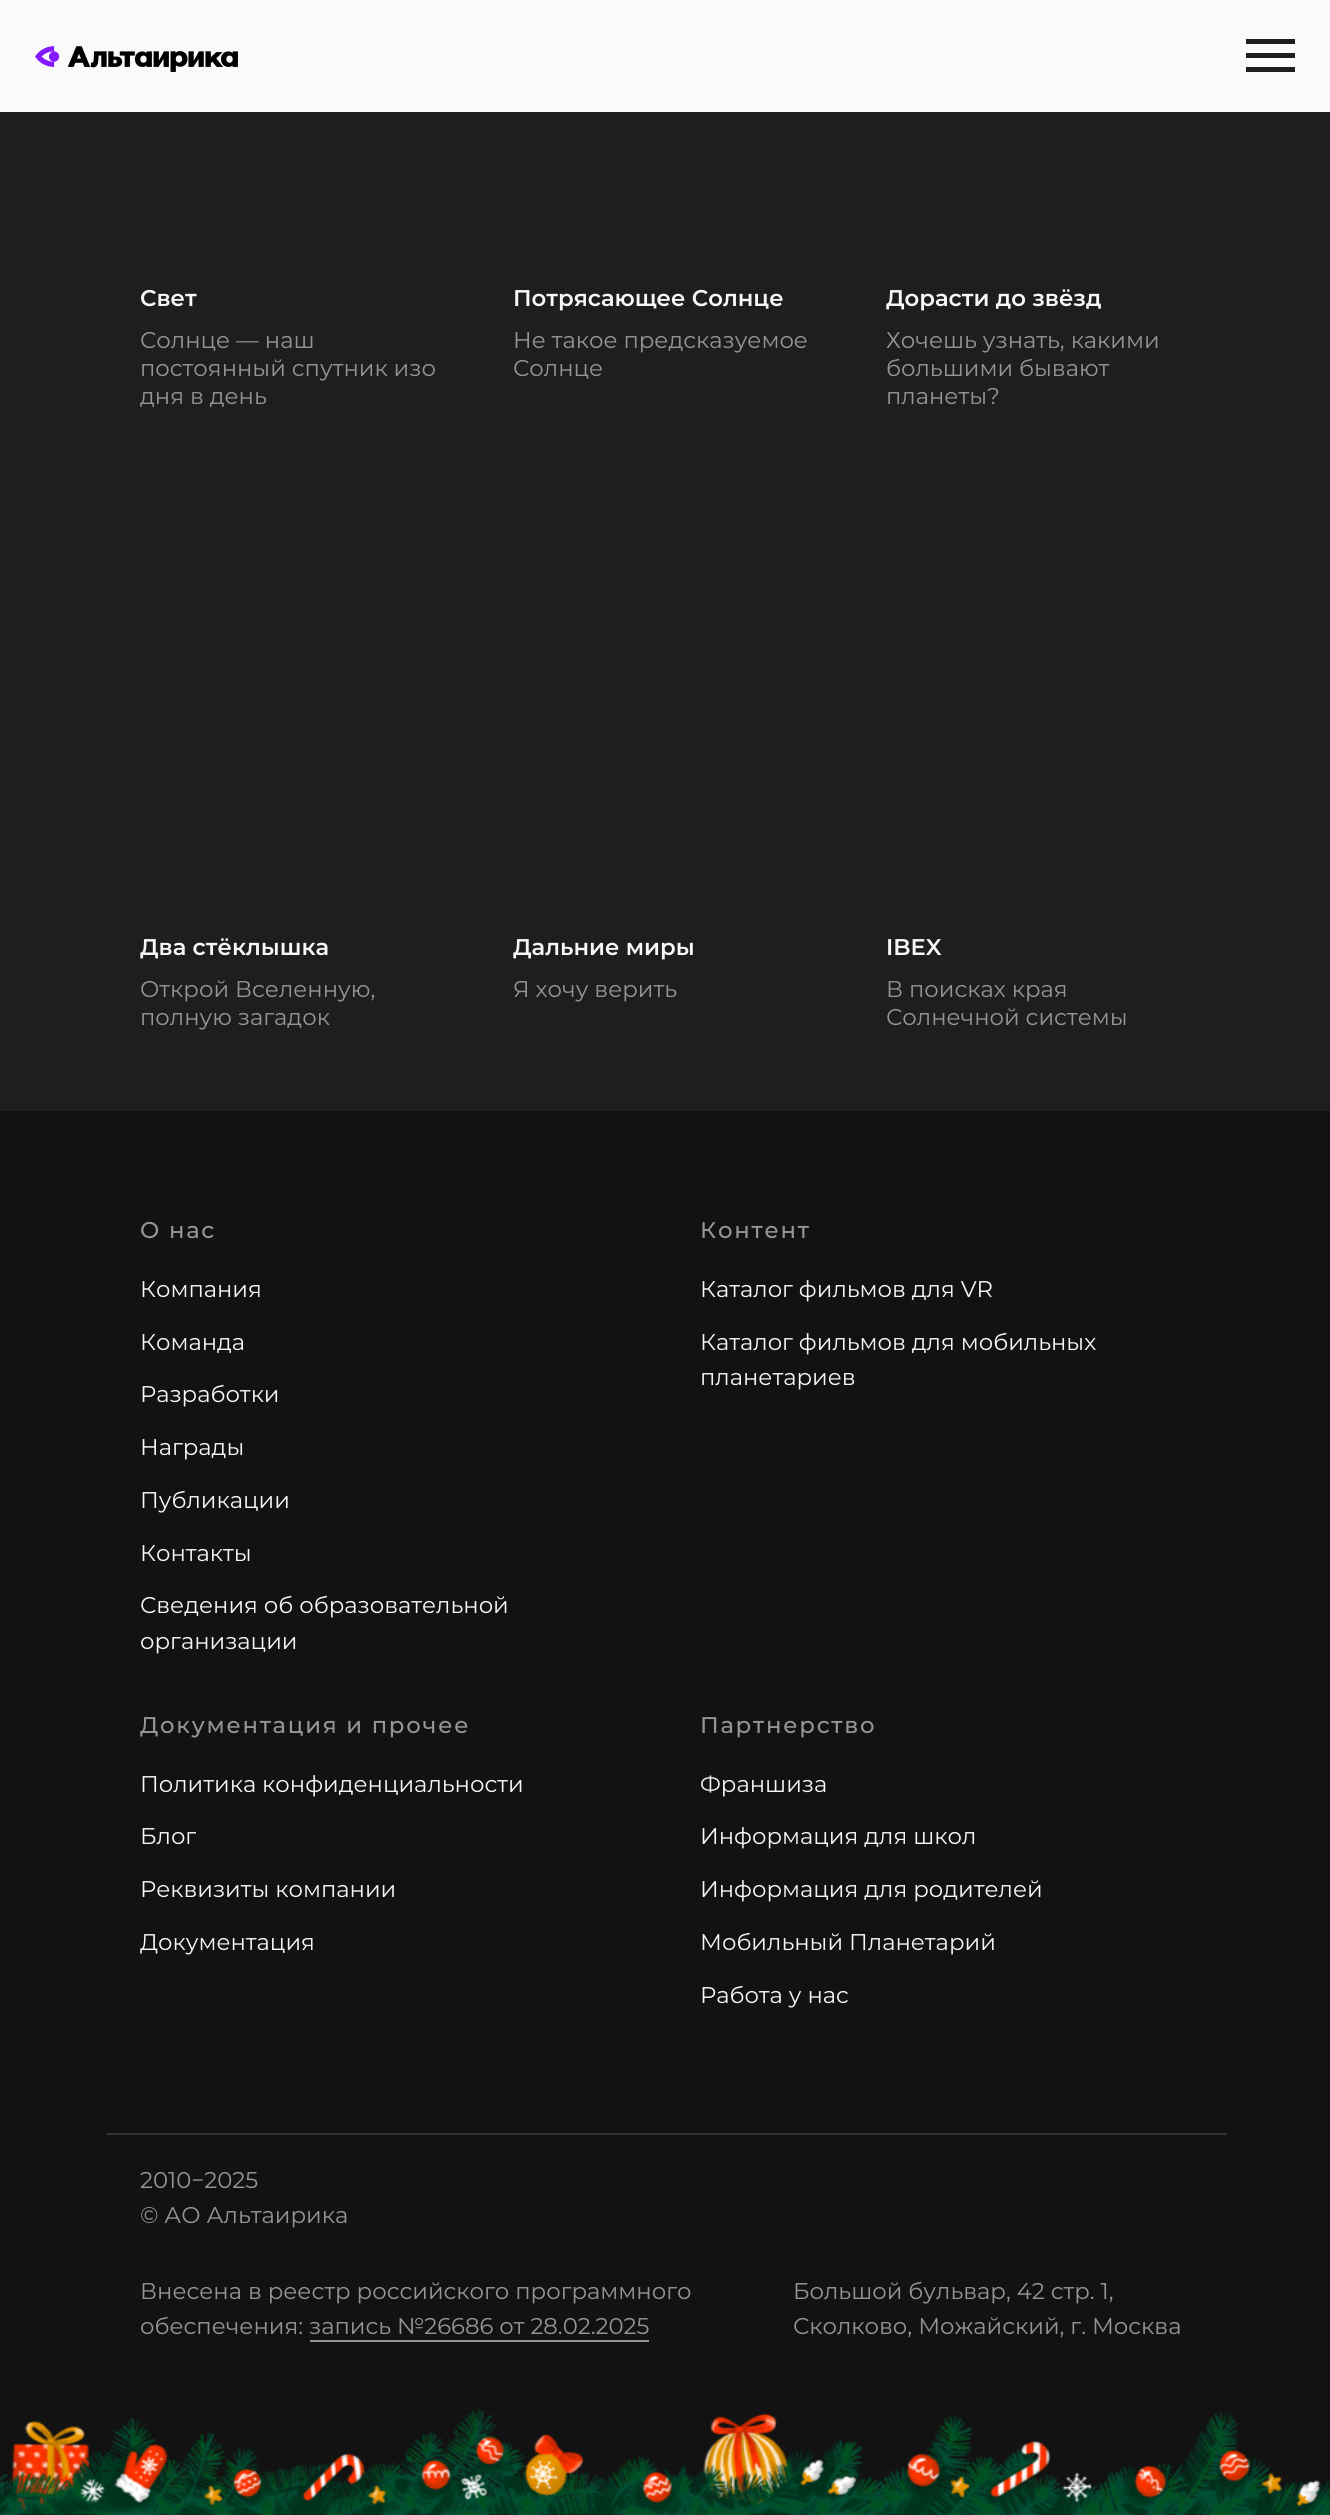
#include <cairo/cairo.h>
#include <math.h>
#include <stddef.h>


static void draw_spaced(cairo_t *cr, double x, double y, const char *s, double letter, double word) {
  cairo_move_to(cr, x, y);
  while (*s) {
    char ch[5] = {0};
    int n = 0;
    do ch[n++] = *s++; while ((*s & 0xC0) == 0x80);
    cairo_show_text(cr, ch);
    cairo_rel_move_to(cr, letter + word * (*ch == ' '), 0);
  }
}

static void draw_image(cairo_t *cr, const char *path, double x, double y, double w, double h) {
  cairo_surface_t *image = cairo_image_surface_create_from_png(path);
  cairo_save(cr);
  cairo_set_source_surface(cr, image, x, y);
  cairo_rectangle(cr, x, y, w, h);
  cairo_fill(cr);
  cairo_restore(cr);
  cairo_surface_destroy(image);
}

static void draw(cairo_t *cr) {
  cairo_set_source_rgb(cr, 30 / 255.0, 30 / 255.0, 30 / 255.0);
  cairo_paint(cr);
  cairo_set_source_rgb(cr, 250 / 255.0, 250 / 255.0, 250 / 255.0);
  cairo_rectangle(cr, 0, 0, 1330, 112);
  cairo_fill(cr);
  draw_image(cr, "images/1.png", 35, 46, 203, 26);
  cairo_set_source_rgb(cr, 30 / 255.0, 30 / 255.0, 30 / 255.0);
  cairo_rectangle(cr, 1246, 39, 49, 5);
  cairo_fill(cr);
  cairo_rectangle(cr, 1246, 53, 49, 5);
  cairo_fill(cr);
  cairo_rectangle(cr, 1246, 67, 49, 5);
  cairo_fill(cr);
  cairo_set_source_rgb(cr, 18 / 255.0, 18 / 255.0, 18 / 255.0);
  cairo_rectangle(cr, 0, 1111, 1330, 980);
  cairo_fill(cr);
  cairo_rectangle(cr, 0, 2091, 1330, 424);
  cairo_fill(cr);
  cairo_set_source_rgb(cr, 51 / 255.0, 51 / 255.0, 51 / 255.0);
  cairo_rectangle(cr, 107, 2133, 1120, 2);
  cairo_fill(cr);
  cairo_set_source_rgb(cr, 149 / 255.0, 149 / 255.0, 149 / 255.0);
  cairo_rectangle(cr, 310, 2340, 339, 2);
  cairo_fill(cr);
  draw_image(cr, "images/2.png", 0, 2409, 1330, 106);
  cairo_select_font_face(cr, "Montserrat SemiBold", CAIRO_FONT_SLANT_NORMAL, CAIRO_FONT_WEIGHT_NORMAL);
  cairo_set_font_size(cr, 22.75);
  cairo_set_source_rgb(cr, 247 / 255.0, 247 / 255.0, 247 / 255.0);
  cairo_move_to(cr, 140, 306);
  cairo_show_text(cr, "Свет");
  cairo_select_font_face(cr, "Montserrat", CAIRO_FONT_SLANT_NORMAL, CAIRO_FONT_WEIGHT_NORMAL);
  cairo_set_source_rgb(cr, 149 / 255.0, 149 / 255.0, 149 / 255.0);
  cairo_move_to(cr, 140, 348);
  cairo_show_text(cr, "Солнце — наш");
  cairo_move_to(cr, 140, 376);
  cairo_show_text(cr, "постоянный спутник изо");
  cairo_move_to(cr, 140, 404);
  cairo_show_text(cr, "дня в день");
  cairo_select_font_face(cr, "Montserrat SemiBold", CAIRO_FONT_SLANT_NORMAL, CAIRO_FONT_WEIGHT_NORMAL);
  cairo_set_source_rgb(cr, 247 / 255.0, 247 / 255.0, 247 / 255.0);
  cairo_move_to(cr, 513, 306);
  cairo_show_text(cr, "Потрясающее Солнце");
  cairo_select_font_face(cr, "Montserrat", CAIRO_FONT_SLANT_NORMAL, CAIRO_FONT_WEIGHT_NORMAL);
  cairo_set_source_rgb(cr, 149 / 255.0, 149 / 255.0, 149 / 255.0);
  cairo_move_to(cr, 513, 348);
  cairo_show_text(cr, "Не такое предсказуемое");
  cairo_move_to(cr, 513, 376);
  cairo_show_text(cr, "Солнце");
  cairo_select_font_face(cr, "Montserrat SemiBold", CAIRO_FONT_SLANT_NORMAL, CAIRO_FONT_WEIGHT_NORMAL);
  cairo_set_source_rgb(cr, 247 / 255.0, 247 / 255.0, 247 / 255.0);
  cairo_move_to(cr, 886, 306);
  cairo_show_text(cr, "Дорасти до звёзд");
  cairo_select_font_face(cr, "Montserrat", CAIRO_FONT_SLANT_NORMAL, CAIRO_FONT_WEIGHT_NORMAL);
  cairo_set_source_rgb(cr, 149 / 255.0, 149 / 255.0, 149 / 255.0);
  cairo_move_to(cr, 886, 348);
  cairo_show_text(cr, "Хочешь узнать, какими");
  cairo_move_to(cr, 886, 376);
  cairo_show_text(cr, "большими бывают");
  cairo_move_to(cr, 886, 404);
  cairo_show_text(cr, "планеты?");
  cairo_select_font_face(cr, "Montserrat SemiBold", CAIRO_FONT_SLANT_NORMAL, CAIRO_FONT_WEIGHT_NORMAL);
  cairo_set_source_rgb(cr, 247 / 255.0, 247 / 255.0, 247 / 255.0);
  cairo_move_to(cr, 140, 955);
  cairo_show_text(cr, "Два стёклышка");
  cairo_select_font_face(cr, "Montserrat", CAIRO_FONT_SLANT_NORMAL, CAIRO_FONT_WEIGHT_NORMAL);
  cairo_set_source_rgb(cr, 149 / 255.0, 149 / 255.0, 149 / 255.0);
  cairo_move_to(cr, 140, 997);
  cairo_show_text(cr, "Открой Вселенную,");
  cairo_move_to(cr, 140, 1025);
  cairo_show_text(cr, "полную загадок");
  cairo_select_font_face(cr, "Montserrat SemiBold", CAIRO_FONT_SLANT_NORMAL, CAIRO_FONT_WEIGHT_NORMAL);
  cairo_set_source_rgb(cr, 247 / 255.0, 247 / 255.0, 247 / 255.0);
  cairo_move_to(cr, 513, 955);
  cairo_show_text(cr, "Дальние миры");
  cairo_select_font_face(cr, "Montserrat", CAIRO_FONT_SLANT_NORMAL, CAIRO_FONT_WEIGHT_NORMAL);
  cairo_set_source_rgb(cr, 149 / 255.0, 149 / 255.0, 149 / 255.0);
  cairo_move_to(cr, 513, 997);
  cairo_show_text(cr, "Я хочу верить");
  cairo_select_font_face(cr, "Montserrat SemiBold", CAIRO_FONT_SLANT_NORMAL, CAIRO_FONT_WEIGHT_NORMAL);
  cairo_set_source_rgb(cr, 247 / 255.0, 247 / 255.0, 247 / 255.0);
  cairo_move_to(cr, 886, 955);
  cairo_show_text(cr, "IBEX");
  cairo_select_font_face(cr, "Montserrat", CAIRO_FONT_SLANT_NORMAL, CAIRO_FONT_WEIGHT_NORMAL);
  cairo_set_source_rgb(cr, 149 / 255.0, 149 / 255.0, 149 / 255.0);
  cairo_move_to(cr, 886, 997);
  cairo_show_text(cr, "В поисках края");
  cairo_move_to(cr, 886, 1025);
  cairo_show_text(cr, "Солнечной системы");
  cairo_select_font_face(cr, "Montserrat Medium", CAIRO_FONT_SLANT_NORMAL, CAIRO_FONT_WEIGHT_NORMAL);
  draw_spaced(cr, 140, 1238, "О нас", 1.75, 0);
  cairo_select_font_face(cr, "Montserrat", CAIRO_FONT_SLANT_NORMAL, CAIRO_FONT_WEIGHT_NORMAL);
  cairo_set_source_rgb(cr, 247 / 255.0, 247 / 255.0, 247 / 255.0);
  cairo_move_to(cr, 140, 1297);
  cairo_show_text(cr, "Компания");
  cairo_move_to(cr, 140, 1350);
  cairo_show_text(cr, "Команда");
  cairo_move_to(cr, 140, 1402);
  cairo_show_text(cr, "Разработки");
  cairo_move_to(cr, 140, 1455);
  cairo_show_text(cr, "Награды");
  cairo_move_to(cr, 140, 1508);
  cairo_show_text(cr, "Публикации");
  cairo_move_to(cr, 140, 1561);
  cairo_show_text(cr, "Контакты");
  cairo_move_to(cr, 140, 1613);
  cairo_show_text(cr, "Сведения об образовательной");
  cairo_move_to(cr, 140, 1649);
  cairo_show_text(cr, "организации");
  cairo_select_font_face(cr, "Montserrat Medium", CAIRO_FONT_SLANT_NORMAL, CAIRO_FONT_WEIGHT_NORMAL);
  cairo_set_source_rgb(cr, 149 / 255.0, 149 / 255.0, 149 / 255.0);
  draw_spaced(cr, 700, 1238, "Контент", 1.75, 0);
  cairo_select_font_face(cr, "Montserrat", CAIRO_FONT_SLANT_NORMAL, CAIRO_FONT_WEIGHT_NORMAL);
  cairo_set_source_rgb(cr, 247 / 255.0, 247 / 255.0, 247 / 255.0);
  cairo_move_to(cr, 700, 1297);
  cairo_show_text(cr, "Каталог фильмов для VR");
  cairo_move_to(cr, 700, 1350);
  cairo_show_text(cr, "Каталог фильмов для мобильных");
  cairo_move_to(cr, 700, 1385);
  cairo_show_text(cr, "планетариев");
  cairo_select_font_face(cr, "Montserrat Medium", CAIRO_FONT_SLANT_NORMAL, CAIRO_FONT_WEIGHT_NORMAL);
  cairo_set_source_rgb(cr, 149 / 255.0, 149 / 255.0, 149 / 255.0);
  draw_spaced(cr, 140, 1733, "Документация и прочее", 1.75, 0);
  cairo_select_font_face(cr, "Montserrat", CAIRO_FONT_SLANT_NORMAL, CAIRO_FONT_WEIGHT_NORMAL);
  cairo_set_source_rgb(cr, 247 / 255.0, 247 / 255.0, 247 / 255.0);
  cairo_move_to(cr, 140, 1792);
  cairo_show_text(cr, "Политика конфиденциальности");
  cairo_move_to(cr, 140, 1844);
  cairo_show_text(cr, "Блог");
  cairo_move_to(cr, 140, 1897);
  cairo_show_text(cr, "Реквизиты компании");
  cairo_move_to(cr, 140, 1950);
  cairo_show_text(cr, "Документация");
  cairo_select_font_face(cr, "Montserrat Medium", CAIRO_FONT_SLANT_NORMAL, CAIRO_FONT_WEIGHT_NORMAL);
  cairo_set_source_rgb(cr, 149 / 255.0, 149 / 255.0, 149 / 255.0);
  draw_spaced(cr, 700, 1733, "Партнерство", 1.75, 0);
  cairo_select_font_face(cr, "Montserrat", CAIRO_FONT_SLANT_NORMAL, CAIRO_FONT_WEIGHT_NORMAL);
  cairo_set_source_rgb(cr, 247 / 255.0, 247 / 255.0, 247 / 255.0);
  cairo_move_to(cr, 700, 1792);
  cairo_show_text(cr, "Франшиза");
  cairo_move_to(cr, 700, 1844);
  cairo_show_text(cr, "Информация для школ");
  cairo_move_to(cr, 700, 1897);
  cairo_show_text(cr, "Информация для родителей");
  cairo_move_to(cr, 700, 1950);
  cairo_show_text(cr, "Мобильный Планетарий");
  cairo_move_to(cr, 700, 2003);
  cairo_show_text(cr, "Работа у наc");
  cairo_set_source_rgb(cr, 149 / 255.0, 149 / 255.0, 149 / 255.0);
  cairo_move_to(cr, 140, 2188);
  cairo_show_text(cr, "2010−2025");
  cairo_move_to(cr, 140, 2223);
  cairo_show_text(cr, "© АО Альтаирика");
  cairo_move_to(cr, 140, 2299);
  cairo_show_text(cr, "Внесена в реестр российского программного");
  cairo_move_to(cr, 140, 2334);
  cairo_show_text(cr, "обеспечения: запись №26686 от 28.02.2025");
  cairo_move_to(cr, 793, 2299);
  cairo_show_text(cr, "Большой бульвар, 42 стр. 1,");
  cairo_move_to(cr, 793, 2334);
  cairo_show_text(cr, "Сколково, Можайский, г. Москва");
}

int main(void) {
  cairo_surface_t *surface = cairo_image_surface_create(CAIRO_FORMAT_RGB24, 1330, 2515);
  cairo_t *cr = cairo_create(surface);
  cairo_font_options_t *options = cairo_font_options_create();
  cairo_font_options_set_hint_metrics(options, CAIRO_HINT_METRICS_OFF);
  cairo_font_options_set_hint_style(options, CAIRO_HINT_STYLE_NONE);
  cairo_set_font_options(cr, options);
  cairo_set_miter_limit(cr, 4);
  draw(cr);
  cairo_surface_write_to_png(surface, "out.png");
  cairo_font_options_destroy(options);
  cairo_destroy(cr);
  cairo_surface_destroy(surface);
  return 0;
}
